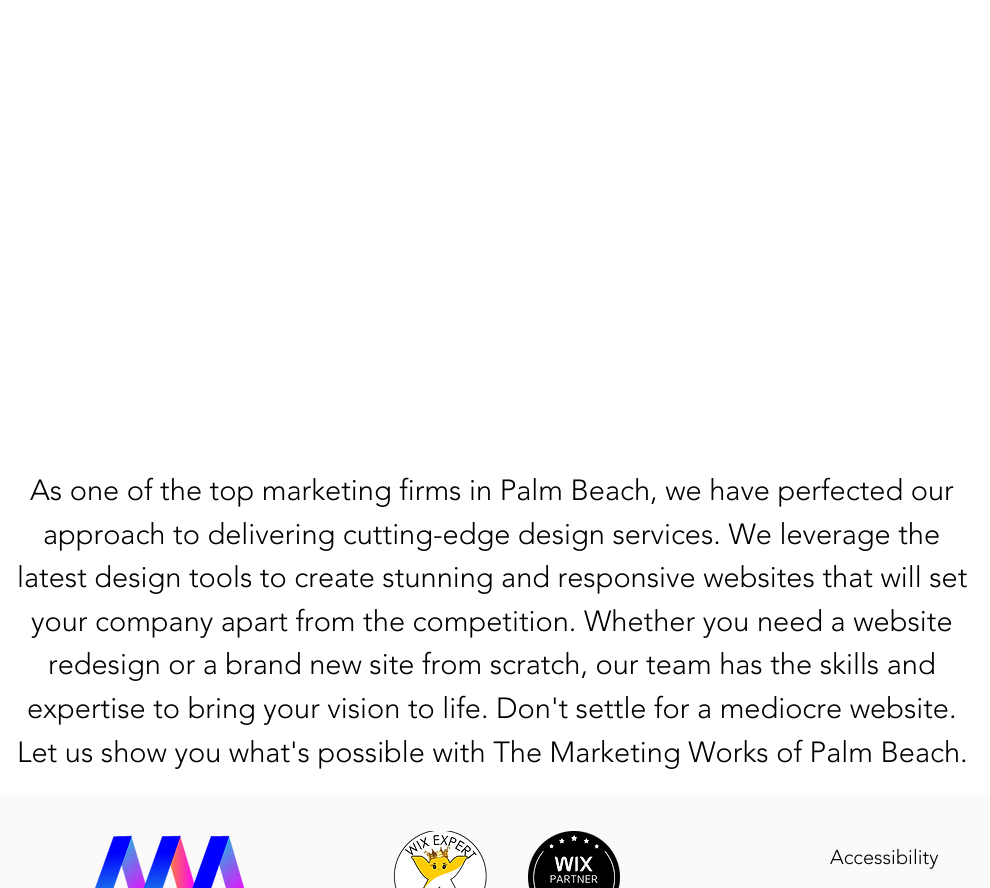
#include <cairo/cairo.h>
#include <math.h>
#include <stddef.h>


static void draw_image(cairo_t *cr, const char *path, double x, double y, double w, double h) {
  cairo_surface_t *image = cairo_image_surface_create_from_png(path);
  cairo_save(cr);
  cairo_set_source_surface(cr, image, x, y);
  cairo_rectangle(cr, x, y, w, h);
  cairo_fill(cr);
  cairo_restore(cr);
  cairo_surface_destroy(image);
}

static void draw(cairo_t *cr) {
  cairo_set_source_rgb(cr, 1, 1, 1);
  cairo_paint(cr);
  cairo_set_source_rgb(cr, 250 / 255.0, 250 / 255.0, 250 / 255.0);
  cairo_rectangle(cr, 0, 795, 990, 93);
  cairo_fill(cr);
  draw_image(cr, "images/1.png", 95, 835, 150, 53);
  draw_image(cr, "images/2.png", 393, 831, 94, 57);
  draw_image(cr, "images/3.png", 528, 831, 92, 57);
  cairo_select_font_face(cr, "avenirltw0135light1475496 Light", CAIRO_FONT_SLANT_NORMAL, CAIRO_FONT_WEIGHT_NORMAL);
  cairo_set_font_size(cr, 29);
  cairo_set_source_rgb(cr, 0, 0, 0);
  cairo_move_to(cr, 30, 500);
  cairo_show_text(cr, "As one of the top marketing firms in Palm Beach, we have perfected our");
  cairo_move_to(cr, 43, 544);
  cairo_show_text(cr, "approach to delivering cutting-edge design services. We leverage the");
  cairo_move_to(cr, 17, 587);
  cairo_show_text(cr, "latest design tools to create stunning and responsive websites that will set");
  cairo_move_to(cr, 31, 631);
  cairo_show_text(cr, "your company apart from the competition. Whether you need a website");
  cairo_move_to(cr, 48, 674);
  cairo_show_text(cr, "redesign or a brand new site from scratch, our team has the skills and");
  cairo_move_to(cr, 27, 718);
  cairo_show_text(cr, "expertise to bring your vision to life. Don't settle for a mediocre website.");
  cairo_move_to(cr, 17, 762);
  cairo_show_text(cr, "Let us show you what's possible with The Marketing Works of Palm Beach.");
  cairo_set_font_size(cr, 20);
  cairo_move_to(cr, 830, 864);
  cairo_show_text(cr, "Accessibility");
}

int main(void) {
  cairo_surface_t *surface = cairo_image_surface_create(CAIRO_FORMAT_RGB24, 990, 888);
  cairo_t *cr = cairo_create(surface);
  cairo_font_options_t *options = cairo_font_options_create();
  cairo_font_options_set_hint_metrics(options, CAIRO_HINT_METRICS_OFF);
  cairo_font_options_set_hint_style(options, CAIRO_HINT_STYLE_NONE);
  cairo_set_font_options(cr, options);
  cairo_set_miter_limit(cr, 4);
  draw(cr);
  cairo_surface_write_to_png(surface, "out.png");
  cairo_font_options_destroy(options);
  cairo_destroy(cr);
  cairo_surface_destroy(surface);
  return 0;
}
